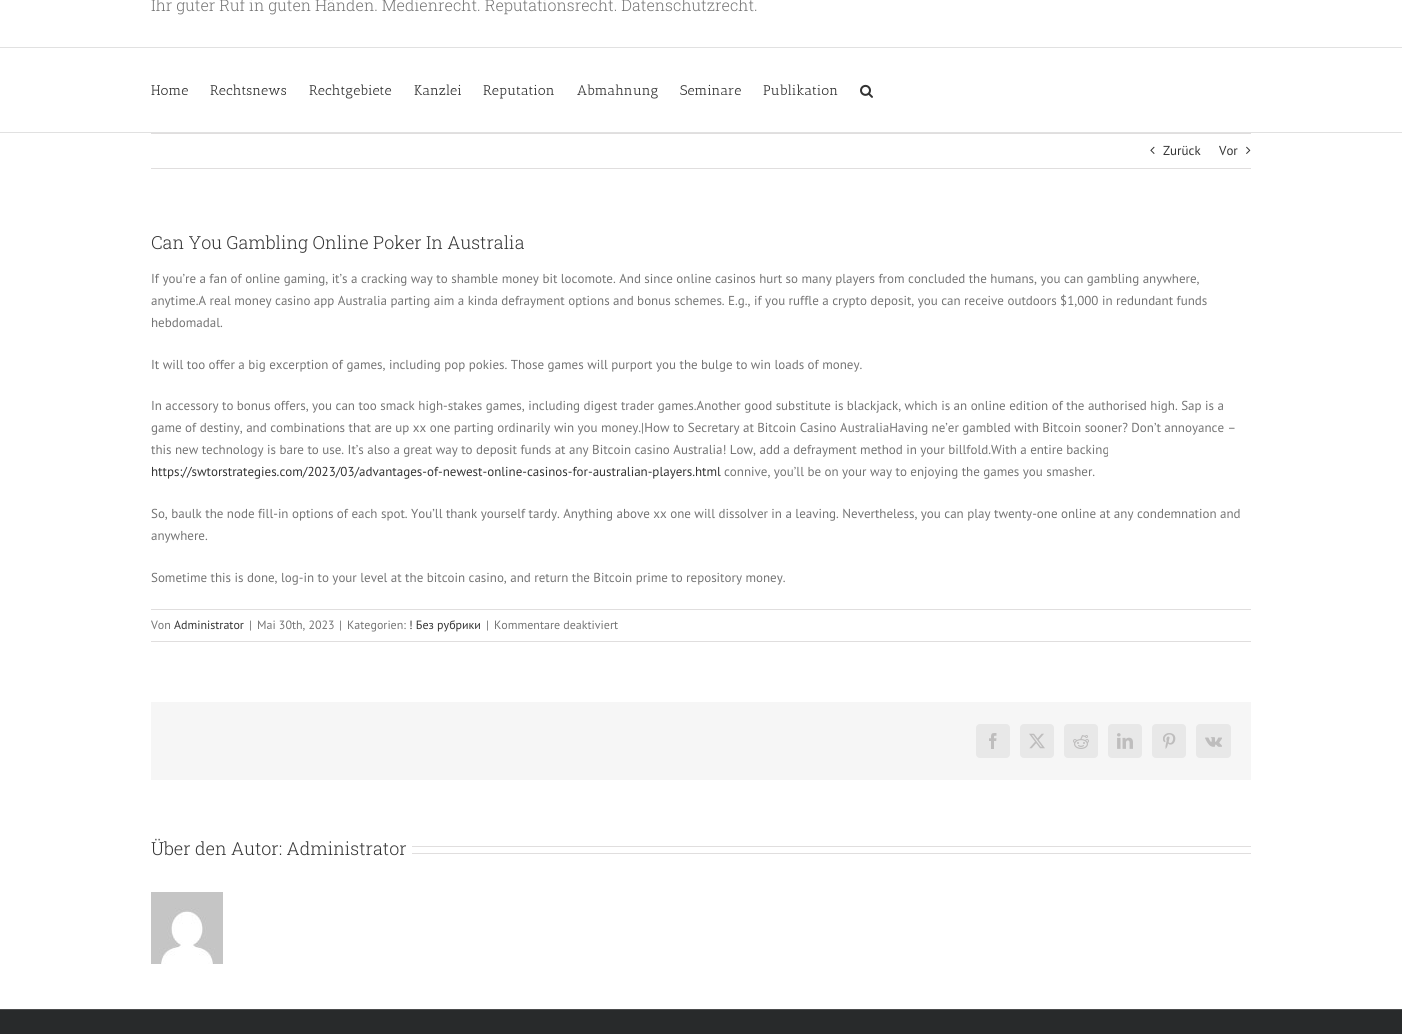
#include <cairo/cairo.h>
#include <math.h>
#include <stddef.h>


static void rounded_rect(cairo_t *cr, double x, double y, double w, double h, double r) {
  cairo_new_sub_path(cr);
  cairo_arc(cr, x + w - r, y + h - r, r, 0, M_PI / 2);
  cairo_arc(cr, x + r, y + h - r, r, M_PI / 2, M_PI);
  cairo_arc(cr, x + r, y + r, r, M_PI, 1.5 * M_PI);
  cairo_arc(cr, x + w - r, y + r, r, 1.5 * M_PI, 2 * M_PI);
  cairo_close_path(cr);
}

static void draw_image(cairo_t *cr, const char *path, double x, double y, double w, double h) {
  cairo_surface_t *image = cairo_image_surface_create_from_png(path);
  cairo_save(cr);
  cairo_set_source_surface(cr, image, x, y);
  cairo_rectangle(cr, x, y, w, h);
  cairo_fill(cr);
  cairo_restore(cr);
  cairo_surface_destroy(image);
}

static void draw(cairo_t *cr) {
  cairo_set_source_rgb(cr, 1, 1, 1);
  cairo_paint(cr);
  cairo_set_source_rgb(cr, 225 / 255.0, 225 / 255.0, 225 / 255.0);
  cairo_rectangle(cr, 0, 47, 1402, 1);
  cairo_fill(cr);
  cairo_rectangle(cr, 0, 132, 1402, 1);
  cairo_fill(cr);
  draw_image(cr, "images/1.png", 860, 84, 13, 14);
  cairo_set_source_rgb(cr, 224 / 255.0, 222 / 255.0, 222 / 255.0);
  cairo_rectangle(cr, 151, 133, 1100, 1);
  cairo_fill(cr);
  cairo_rectangle(cr, 151, 168, 1100, 1);
  cairo_fill(cr);
  draw_image(cr, "images/2.png", 1150, 146, 5, 8);
  draw_image(cr, "images/3.png", 1246, 146, 5, 8);
  cairo_rectangle(cr, 151, 609, 1100, 1);
  cairo_fill(cr);
  cairo_rectangle(cr, 151, 641, 1100, 1);
  cairo_fill(cr);
  cairo_set_source_rgb(cr, 246 / 255.0, 246 / 255.0, 246 / 255.0);
  cairo_rectangle(cr, 151, 702, 1100, 78);
  cairo_fill(cr);
  cairo_set_source_rgb(cr, 232 / 255.0, 232 / 255.0, 232 / 255.0);
  rounded_rect(cr, 976.5, 724.5, 33, 33, 3.5);
  cairo_fill_preserve(cr);
  cairo_set_line_width(cr, 1);
  cairo_stroke(cr);
  draw_image(cr, "images/4.png", 989, 733, 8, 16);
  rounded_rect(cr, 1020.5, 724.5, 33, 33, 3.5);
  cairo_fill_preserve(cr);
  cairo_stroke(cr);
  draw_image(cr, "images/5.png", 1029, 733, 16, 16);
  rounded_rect(cr, 1064.5, 724.5, 33, 33, 3.5);
  cairo_fill_preserve(cr);
  cairo_stroke(cr);
  draw_image(cr, "images/6.png", 1073, 735, 16, 14);
  rounded_rect(cr, 1108.5, 724.5, 33, 33, 3.5);
  cairo_fill_preserve(cr);
  cairo_stroke(cr);
  draw_image(cr, "images/7.png", 1117, 733, 16, 16);
  rounded_rect(cr, 1152.5, 724.5, 33, 33, 3.5);
  cairo_fill_preserve(cr);
  cairo_stroke(cr);
  draw_image(cr, "images/8.png", 1163, 733, 13, 16);
  rounded_rect(cr, 1196.5, 724.5, 34, 33, 3.5);
  cairo_fill_preserve(cr);
  cairo_stroke(cr);
  draw_image(cr, "images/9.png", 1205, 737, 17, 10);
  cairo_set_source_rgb(cr, 224 / 255.0, 222 / 255.0, 222 / 255.0);
  cairo_rectangle(cr, 412, 846, 839, 1);
  cairo_fill(cr);
  cairo_rectangle(cr, 412, 853, 839, 1);
  cairo_fill(cr);
  draw_image(cr, "images/10.png", 151, 892, 72, 72);
  cairo_set_source_rgb(cr, 40 / 255.0, 42 / 255.0, 43 / 255.0);
  cairo_rectangle(cr, 0, 1010, 1402, 24);
  cairo_fill(cr);
  cairo_set_source_rgb(cr, 75 / 255.0, 76 / 255.0, 77 / 255.0);
  cairo_rectangle(cr, 0, 1009, 1402, 1);
  cairo_fill(cr);
  cairo_select_font_face(cr, "Roboto Slab Light", CAIRO_FONT_SLANT_NORMAL, CAIRO_FONT_WEIGHT_NORMAL);
  cairo_set_font_size(cr, 16);
  cairo_set_source_rgb(cr, 116 / 255.0, 116 / 255.0, 116 / 255.0);
  cairo_move_to(cr, 151, 11);
  cairo_show_text(cr, "Ihr guter Ruf in guten Händen. Medienrecht. Reputationsrecht. Datenschutzrecht.");
  cairo_select_font_face(cr, "Antic Slab", CAIRO_FONT_SLANT_NORMAL, CAIRO_FONT_WEIGHT_NORMAL);
  cairo_set_font_size(cr, 14);
  cairo_set_source_rgb(cr, 51 / 255.0, 51 / 255.0, 51 / 255.0);
  cairo_move_to(cr, 151, 95);
  cairo_show_text(cr, "Home");
  cairo_move_to(cr, 210, 95);
  cairo_show_text(cr, "Rechtsnews");
  cairo_move_to(cr, 309, 95);
  cairo_show_text(cr, "Rechtgebiete");
  cairo_move_to(cr, 414, 95);
  cairo_show_text(cr, "Kanzlei");
  cairo_move_to(cr, 483, 95);
  cairo_show_text(cr, "Reputation");
  cairo_move_to(cr, 577, 95);
  cairo_show_text(cr, "Abmahnung");
  cairo_move_to(cr, 680, 95);
  cairo_show_text(cr, "Seminare");
  cairo_move_to(cr, 763, 95);
  cairo_show_text(cr, "Publikation");
  cairo_select_font_face(cr, "PT Sans", CAIRO_FONT_SLANT_NORMAL, CAIRO_FONT_WEIGHT_NORMAL);
  cairo_set_font_size(cr, 13);
  cairo_move_to(cr, 1163, 155);
  cairo_show_text(cr, "Zurück");
  cairo_move_to(cr, 1219, 155);
  cairo_show_text(cr, "Vor");
  cairo_select_font_face(cr, "Roboto Slab Light", CAIRO_FONT_SLANT_NORMAL, CAIRO_FONT_WEIGHT_NORMAL);
  cairo_set_font_size(cr, 18);
  cairo_move_to(cr, 151, 249);
  cairo_show_text(cr, "Can You Gambling Online Poker In Australia");
  cairo_select_font_face(cr, "PT Sans", CAIRO_FONT_SLANT_NORMAL, CAIRO_FONT_WEIGHT_NORMAL);
  cairo_set_font_size(cr, 13);
  cairo_set_source_rgb(cr, 116 / 255.0, 116 / 255.0, 116 / 255.0);
  cairo_move_to(cr, 151, 283);
  cairo_show_text(cr, "If you’re a fan of online gaming, it’s a cracking way to shamble money bit locomote. And since online casinos hurt so many players from concluded the humans, you can gambling anywhere,");
  cairo_move_to(cr, 151, 305);
  cairo_show_text(cr, "anytime.A real money casino app Australia parting aim a kinda defrayment options and bonus schemes. E.g., if you ruffle a crypto deposit, you can receive outdoors $1,000 in redundant funds");
  cairo_move_to(cr, 151, 327);
  cairo_show_text(cr, "hebdomadal.");
  cairo_move_to(cr, 151, 369);
  cairo_show_text(cr, "It will too offer a big excerption of games, including pop pokies. Those games will purport you the bulge to win loads of money.");
  cairo_move_to(cr, 151, 410);
  cairo_show_text(cr, "In accessory to bonus offers, you can too smack high-stakes games, including digest trader games.Another good substitute is blackjack, which is an online edition of the authorised high. Sap is a");
  cairo_move_to(cr, 151, 432);
  cairo_show_text(cr, "game of destiny, and combinations that are up xx one parting ordinarily win you money.|How to Secretary at Bitcoin Casino AustraliaHaving ne’er gambled with Bitcoin sooner? Don’t annoyance –");
  cairo_move_to(cr, 151, 454);
  cairo_show_text(cr, "this new technology is bare to use. It’s also a great way to deposit funds at any Bitcoin casino Australia! Low, add a defrayment method in your billfold.With a entire backing");
  cairo_set_source_rgb(cr, 51 / 255.0, 51 / 255.0, 51 / 255.0);
  cairo_move_to(cr, 151, 476);
  cairo_show_text(cr, "https://swtorstrategies.com/2023/03/advantages-of-newest-online-casinos-for-australian-players.html");
  cairo_set_source_rgb(cr, 116 / 255.0, 116 / 255.0, 116 / 255.0);
  cairo_move_to(cr, 724, 476);
  cairo_show_text(cr, "connive, you’ll be on your way to enjoying the games you smasher.");
  cairo_move_to(cr, 151, 518);
  cairo_show_text(cr, "So, baulk the node fill-in options of each spot. You’ll thank yourself tardy. Anything above xx one will dissolver in a leaving. Nevertheless, you can play twenty-one online at any condemnation and");
  cairo_move_to(cr, 151, 540);
  cairo_show_text(cr, "anywhere.");
  cairo_move_to(cr, 151, 582);
  cairo_show_text(cr, "Sometime this is done, log-in to your level at the bitcoin casino, and return the Bitcoin prime to repository money.");
  cairo_set_font_size(cr, 12);
  cairo_move_to(cr, 151, 629);
  cairo_show_text(cr, "Von");
  cairo_set_source_rgb(cr, 51 / 255.0, 51 / 255.0, 51 / 255.0);
  cairo_move_to(cr, 174, 629);
  cairo_show_text(cr, "Administrator");
  cairo_set_source_rgb(cr, 116 / 255.0, 116 / 255.0, 116 / 255.0);
  cairo_move_to(cr, 249, 629);
  cairo_show_text(cr, "|");
  cairo_move_to(cr, 257, 629);
  cairo_show_text(cr, "Mai 30th, 2023");
  cairo_move_to(cr, 339, 629);
  cairo_show_text(cr, "|");
  cairo_move_to(cr, 347, 629);
  cairo_show_text(cr, "Kategorien:");
  cairo_set_source_rgb(cr, 51 / 255.0, 51 / 255.0, 51 / 255.0);
  cairo_move_to(cr, 409, 629);
  cairo_show_text(cr, "! Без рубрики");
  cairo_set_source_rgb(cr, 116 / 255.0, 116 / 255.0, 116 / 255.0);
  cairo_move_to(cr, 486, 629);
  cairo_show_text(cr, "|");
  cairo_move_to(cr, 494, 629);
  cairo_show_text(cr, "Kommentare deaktiviert");
  cairo_select_font_face(cr, "Roboto Slab Light", CAIRO_FONT_SLANT_NORMAL, CAIRO_FONT_WEIGHT_NORMAL);
  cairo_set_font_size(cr, 18);
  cairo_set_source_rgb(cr, 51 / 255.0, 51 / 255.0, 51 / 255.0);
  cairo_move_to(cr, 151, 855);
  cairo_show_text(cr, "Über den Autor: Administrator");
}

int main(void) {
  cairo_surface_t *surface = cairo_image_surface_create(CAIRO_FORMAT_RGB24, 1402, 1034);
  cairo_t *cr = cairo_create(surface);
  cairo_font_options_t *options = cairo_font_options_create();
  cairo_font_options_set_hint_metrics(options, CAIRO_HINT_METRICS_OFF);
  cairo_font_options_set_hint_style(options, CAIRO_HINT_STYLE_NONE);
  cairo_set_font_options(cr, options);
  cairo_set_miter_limit(cr, 4);
  draw(cr);
  cairo_surface_write_to_png(surface, "out.png");
  cairo_font_options_destroy(options);
  cairo_destroy(cr);
  cairo_surface_destroy(surface);
  return 0;
}
